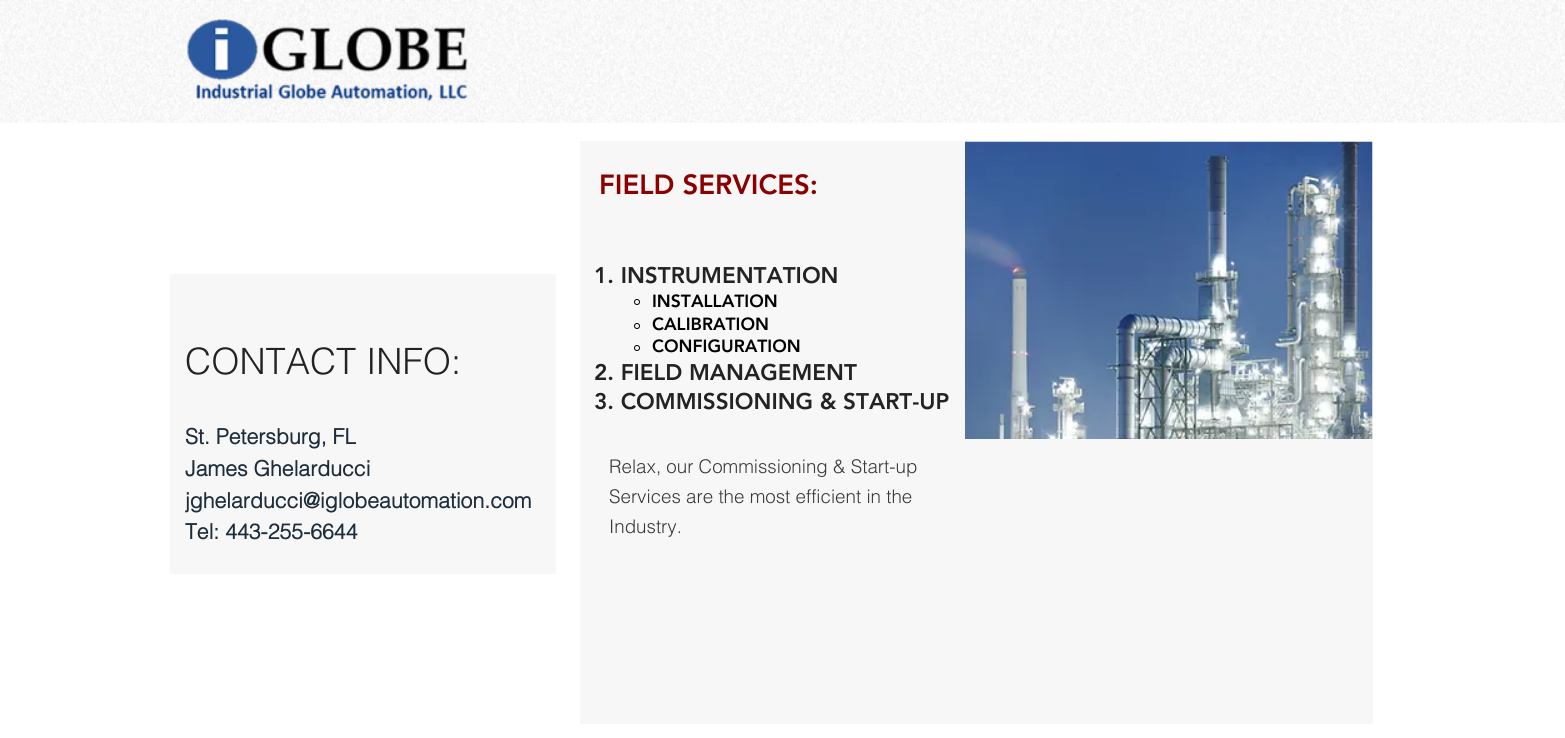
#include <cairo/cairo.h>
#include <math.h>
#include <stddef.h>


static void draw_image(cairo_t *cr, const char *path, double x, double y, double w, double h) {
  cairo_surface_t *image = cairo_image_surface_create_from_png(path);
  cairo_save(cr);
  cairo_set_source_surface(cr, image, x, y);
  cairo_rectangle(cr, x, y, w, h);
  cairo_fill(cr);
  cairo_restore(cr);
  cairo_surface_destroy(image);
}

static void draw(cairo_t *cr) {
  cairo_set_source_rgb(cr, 1, 1, 1);
  cairo_paint(cr);
  draw_image(cr, "images/1.png", 0, 0, 1565, 123);
  draw_image(cr, "images/2.png", 187, 19, 281, 83);
  cairo_set_source_rgb(cr, 247 / 255.0, 247 / 255.0, 247 / 255.0);
  cairo_rectangle(cr, 170, 274, 386, 300);
  cairo_fill(cr);
  cairo_rectangle(cr, 580, 141, 793, 583);
  cairo_fill(cr);
  draw_image(cr, "images/3.png", 965, 141, 408, 298);
  cairo_arc(cr, 637, 302, 2.5, 0, 2 * M_PI);
  cairo_set_source_rgb(cr, 0, 0, 0);
  cairo_set_line_width(cr, 1);
  cairo_stroke(cr);
  cairo_arc(cr, 637, 326, 2.5, 0, 2 * M_PI);
  cairo_stroke(cr);
  cairo_arc(cr, 637, 348, 2.5, 0, 2 * M_PI);
  cairo_stroke(cr);
  cairo_select_font_face(cr, "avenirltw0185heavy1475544 Black", CAIRO_FONT_SLANT_NORMAL, CAIRO_FONT_WEIGHT_NORMAL);
  cairo_set_font_size(cr, 27.5);
  cairo_set_source_rgb(cr, 139 / 255.0, 0, 0);
  cairo_move_to(cr, 599, 194);
  cairo_show_text(cr, "FIELD SERVICES:");
  cairo_set_font_size(cr, 22.5);
  cairo_set_source_rgb(cr, 35 / 255.0, 35 / 255.0, 35 / 255.0);
  cairo_move_to(cr, 594, 283);
  cairo_show_text(cr, "1. INSTRUMENTATION");
  cairo_set_font_size(cr, 17.5);
  cairo_set_source_rgb(cr, 0, 0, 0);
  cairo_move_to(cr, 652, 307);
  cairo_show_text(cr, "INSTALLATION");
  cairo_move_to(cr, 652, 330);
  cairo_show_text(cr, "CALIBRATION");
  cairo_move_to(cr, 652, 352);
  cairo_show_text(cr, "CONFIGURATION");
  cairo_set_font_size(cr, 22.5);
  cairo_set_source_rgb(cr, 35 / 255.0, 35 / 255.0, 35 / 255.0);
  cairo_move_to(cr, 594, 380);
  cairo_show_text(cr, "2. FIELD MANAGEMENT");
  cairo_move_to(cr, 594, 409);
  cairo_show_text(cr, "3. COMMISSIONING & START-UP");
  cairo_select_font_face(cr, "helvetica Light", CAIRO_FONT_SLANT_NORMAL, CAIRO_FONT_WEIGHT_NORMAL);
  cairo_set_font_size(cr, 18.75);
  cairo_set_source_rgb(cr, 59 / 255.0, 58 / 255.0, 58 / 255.0);
  cairo_move_to(cr, 609, 473);
  cairo_show_text(cr, "Relax, our Commissioning & Start-up");
  cairo_move_to(cr, 609, 503);
  cairo_show_text(cr, "Services are the most efficient in the");
  cairo_move_to(cr, 609, 533);
  cairo_show_text(cr, "Industry.");
  cairo_set_font_size(cr, 36.25);
  cairo_set_source_rgb(cr, 35 / 255.0, 35 / 255.0, 35 / 255.0);
  cairo_move_to(cr, 185, 374);
  cairo_show_text(cr, "CONTACT INFO:");
  cairo_select_font_face(cr, "helvetica", CAIRO_FONT_SLANT_NORMAL, CAIRO_FONT_WEIGHT_BOLD);
  cairo_set_font_size(cr, 21.25);
  cairo_set_source_rgb(cr, 30 / 255.0, 45 / 255.0, 59 / 255.0);
  cairo_move_to(cr, 185, 444);
  cairo_show_text(cr, "St. Petersburg, FL");
  cairo_move_to(cr, 185, 476);
  cairo_show_text(cr, "James Ghelarducci");
  cairo_move_to(cr, 185, 508);
  cairo_show_text(cr, "jghelarducci@iglobeautomation.com");
  cairo_move_to(cr, 185, 539);
  cairo_show_text(cr, "Tel: 443-255-6644");
}

int main(void) {
  cairo_surface_t *surface = cairo_image_surface_create(CAIRO_FORMAT_RGB24, 1565, 738);
  cairo_t *cr = cairo_create(surface);
  cairo_font_options_t *options = cairo_font_options_create();
  cairo_font_options_set_hint_metrics(options, CAIRO_HINT_METRICS_OFF);
  cairo_font_options_set_hint_style(options, CAIRO_HINT_STYLE_NONE);
  cairo_set_font_options(cr, options);
  cairo_set_miter_limit(cr, 4);
  draw(cr);
  cairo_surface_write_to_png(surface, "out.png");
  cairo_font_options_destroy(options);
  cairo_destroy(cr);
  cairo_surface_destroy(surface);
  return 0;
}
